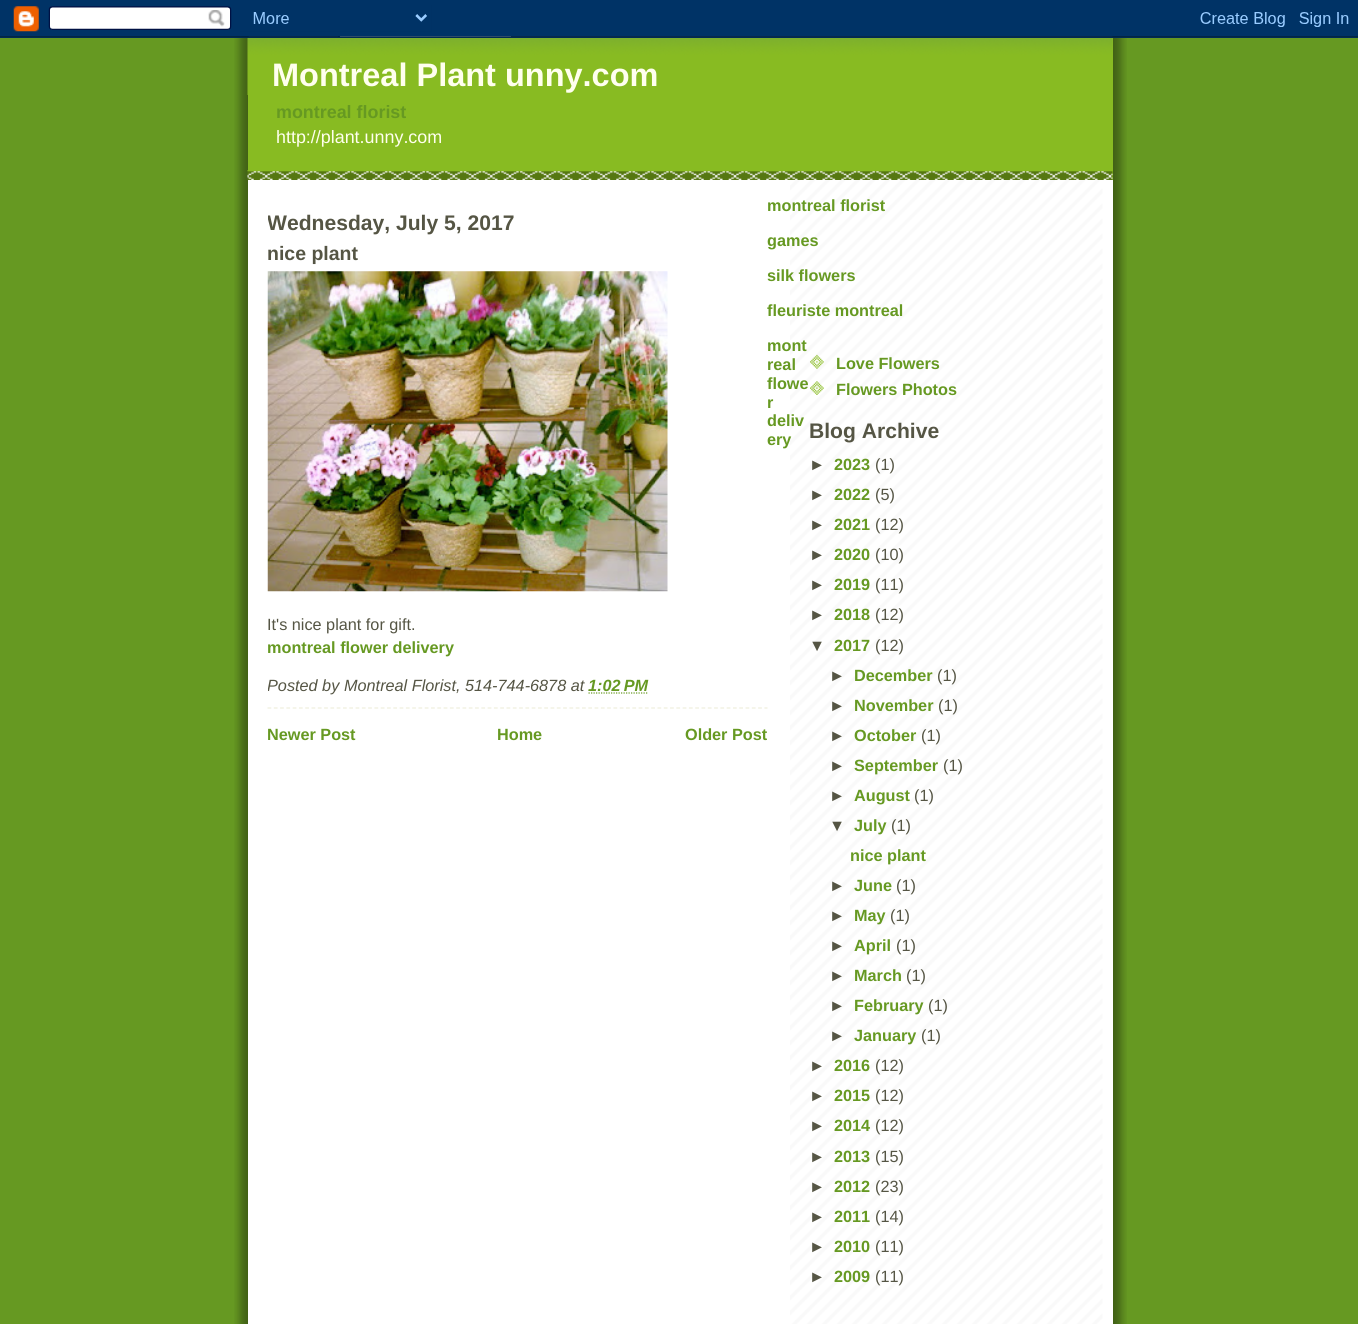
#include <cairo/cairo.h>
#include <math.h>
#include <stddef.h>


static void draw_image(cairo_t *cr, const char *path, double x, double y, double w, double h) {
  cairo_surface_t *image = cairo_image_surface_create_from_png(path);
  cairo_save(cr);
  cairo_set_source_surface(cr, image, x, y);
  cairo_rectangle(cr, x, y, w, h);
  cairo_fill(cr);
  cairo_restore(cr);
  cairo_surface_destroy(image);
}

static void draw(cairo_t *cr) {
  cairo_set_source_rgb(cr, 102 / 255.0, 153 / 255.0, 34 / 255.0);
  cairo_paint(cr);
  draw_image(cr, "images/1.png", 234, 36, 893, 1288);
  draw_image(cr, "images/2.png", 0, 0, 1358, 38);
  cairo_set_source_rgb(cr, 1, 1, 1);
  cairo_rectangle(cr, 248, 180, 865, 1144);
  cairo_fill(cr);
  draw_image(cr, "images/3.png", 790, 180, 323, 1144);
  cairo_set_source_rgb(cr, 136 / 255.0, 187 / 255.0, 34 / 255.0);
  cairo_rectangle(cr, 248, 38, 865, 142);
  cairo_fill(cr);
  draw_image(cr, "images/4.png", 247, 170, 866, 10);
  draw_image(cr, "images/5.png", 247, 38, 866, 57);
  draw_image(cr, "images/6.png", 267, 271, 401, 321);
  cairo_new_path(cr);
  cairo_move_to(cr, 588.5, 693);
  cairo_line_to(cr, 648.5, 693);
  cairo_set_source_rgb(cr, 102 / 255.0, 153 / 255.0, 34 / 255.0);
  cairo_set_line_width(cr, 1.2);
  cairo_set_dash(cr, (double[]){1.25, 1.25}, 2, 0);
  cairo_stroke(cr);
  cairo_new_path(cr);
  cairo_move_to(cr, 267.5, 708);
  cairo_line_to(cr, 767.5, 708);
  cairo_set_source_rgb(cr, 238 / 255.0, 238 / 255.0, 221 / 255.0);
  cairo_set_dash(cr, (double[]){3.75, 2.54}, 2, 0);
  cairo_stroke(cr);
  draw_image(cr, "images/7.png", 810, 354, 14, 15);
  draw_image(cr, "images/8.png", 810, 381, 14, 14);
  cairo_select_font_face(cr, "Liberation Sans", CAIRO_FONT_SLANT_NORMAL, CAIRO_FONT_WEIGHT_BOLD);
  cairo_set_font_size(cr, 32.5);
  cairo_set_source_rgb(cr, 1, 1, 238 / 255.0);
  cairo_move_to(cr, 272, 86);
  cairo_show_text(cr, "Montreal Plant unny.com");
  cairo_set_font_size(cr, 17.9);
  cairo_set_source_rgb(cr, 102 / 255.0, 153 / 255.0, 34 / 255.0);
  cairo_move_to(cr, 276, 118);
  cairo_show_text(cr, "montreal florist");
  cairo_select_font_face(cr, "Liberation Sans", CAIRO_FONT_SLANT_NORMAL, CAIRO_FONT_WEIGHT_NORMAL);
  cairo_set_source_rgb(cr, 1, 1, 238 / 255.0);
  cairo_move_to(cr, 276, 143);
  cairo_show_text(cr, "http://plant.unny.com");
  cairo_select_font_face(cr, "Liberation Sans", CAIRO_FONT_SLANT_NORMAL, CAIRO_FONT_WEIGHT_BOLD);
  cairo_set_font_size(cr, 16.25);
  cairo_set_source_rgb(cr, 102 / 255.0, 153 / 255.0, 34 / 255.0);
  cairo_move_to(cr, 767, 211);
  cairo_show_text(cr, "montreal florist");
  cairo_save(cr);
  cairo_rectangle(cr, 268, 196, 500, 564);
  cairo_clip(cr);
  cairo_set_font_size(cr, 21.1);
  cairo_set_source_rgb(cr, 85 / 255.0, 85 / 255.0, 68 / 255.0);
  cairo_move_to(cr, 267, 230);
  cairo_show_text(cr, "Wednesday, July 5, 2017");
  cairo_restore(cr);
  cairo_set_font_size(cr, 19.5);
  cairo_set_source_rgb(cr, 85 / 255.0, 85 / 255.0, 68 / 255.0);
  cairo_move_to(cr, 267, 260);
  cairo_show_text(cr, "nice plant");
  cairo_select_font_face(cr, "Liberation Sans", CAIRO_FONT_SLANT_NORMAL, CAIRO_FONT_WEIGHT_NORMAL);
  cairo_set_font_size(cr, 16.25);
  cairo_move_to(cr, 267, 630);
  cairo_show_text(cr, "It's nice plant for gift.");
  cairo_select_font_face(cr, "Liberation Sans", CAIRO_FONT_SLANT_NORMAL, CAIRO_FONT_WEIGHT_BOLD);
  cairo_set_source_rgb(cr, 102 / 255.0, 153 / 255.0, 34 / 255.0);
  cairo_move_to(cr, 267, 653);
  cairo_show_text(cr, "montreal flower delivery");
  cairo_save(cr);
  cairo_rectangle(cr, 268, 196, 500, 564);
  cairo_clip(cr);
  cairo_select_font_face(cr, "Liberation Sans", CAIRO_FONT_SLANT_ITALIC, CAIRO_FONT_WEIGHT_NORMAL);
  cairo_set_source_rgb(cr, 85 / 255.0, 85 / 255.0, 68 / 255.0);
  cairo_move_to(cr, 267, 691);
  cairo_show_text(cr, "Posted by");
  cairo_restore(cr);
  cairo_select_font_face(cr, "Liberation Sans", CAIRO_FONT_SLANT_ITALIC, CAIRO_FONT_WEIGHT_NORMAL);
  cairo_set_source_rgb(cr, 85 / 255.0, 85 / 255.0, 68 / 255.0);
  cairo_move_to(cr, 344, 691);
  cairo_show_text(cr, "Montreal Florist, 514-744-6878 at");
  cairo_select_font_face(cr, "Liberation Sans", CAIRO_FONT_SLANT_ITALIC, CAIRO_FONT_WEIGHT_BOLD);
  cairo_set_source_rgb(cr, 102 / 255.0, 153 / 255.0, 34 / 255.0);
  cairo_move_to(cr, 588, 691);
  cairo_show_text(cr, "1:02 PM");
  cairo_select_font_face(cr, "Liberation Sans", CAIRO_FONT_SLANT_NORMAL, CAIRO_FONT_WEIGHT_BOLD);
  cairo_move_to(cr, 267, 740);
  cairo_show_text(cr, "Newer Post");
  cairo_move_to(cr, 497, 740);
  cairo_show_text(cr, "Home");
  cairo_move_to(cr, 685, 740);
  cairo_show_text(cr, "Older Post");
  cairo_move_to(cr, 767, 246);
  cairo_show_text(cr, "games");
  cairo_move_to(cr, 767, 281);
  cairo_show_text(cr, "silk flowers");
  cairo_move_to(cr, 767, 316);
  cairo_show_text(cr, "fleuriste montreal");
  cairo_move_to(cr, 767, 351);
  cairo_show_text(cr, "mont");
  cairo_move_to(cr, 767, 370);
  cairo_show_text(cr, "real");
  cairo_move_to(cr, 836, 369);
  cairo_show_text(cr, "Love Flowers");
  cairo_move_to(cr, 836, 395);
  cairo_show_text(cr, "Flowers Photos");
  cairo_set_font_size(cr, 21.1);
  cairo_set_source_rgb(cr, 85 / 255.0, 85 / 255.0, 68 / 255.0);
  cairo_move_to(cr, 809, 438);
  cairo_show_text(cr, "Blog Archive");
  cairo_set_font_size(cr, 16.25);
  cairo_move_to(cr, 809, 470);
  cairo_show_text(cr, "►");
  cairo_set_source_rgb(cr, 102 / 255.0, 153 / 255.0, 34 / 255.0);
  cairo_move_to(cr, 834, 470);
  cairo_show_text(cr, "2023");
  cairo_select_font_face(cr, "Liberation Sans", CAIRO_FONT_SLANT_NORMAL, CAIRO_FONT_WEIGHT_NORMAL);
  cairo_set_source_rgb(cr, 85 / 255.0, 85 / 255.0, 68 / 255.0);
  cairo_move_to(cr, 875, 470);
  cairo_show_text(cr, "(1)");
  cairo_select_font_face(cr, "Liberation Sans", CAIRO_FONT_SLANT_NORMAL, CAIRO_FONT_WEIGHT_BOLD);
  cairo_move_to(cr, 809, 500);
  cairo_show_text(cr, "►");
  cairo_set_source_rgb(cr, 102 / 255.0, 153 / 255.0, 34 / 255.0);
  cairo_move_to(cr, 834, 500);
  cairo_show_text(cr, "2022");
  cairo_select_font_face(cr, "Liberation Sans", CAIRO_FONT_SLANT_NORMAL, CAIRO_FONT_WEIGHT_NORMAL);
  cairo_set_source_rgb(cr, 85 / 255.0, 85 / 255.0, 68 / 255.0);
  cairo_move_to(cr, 875, 500);
  cairo_show_text(cr, "(5)");
  cairo_select_font_face(cr, "Liberation Sans", CAIRO_FONT_SLANT_NORMAL, CAIRO_FONT_WEIGHT_BOLD);
  cairo_move_to(cr, 809, 530);
  cairo_show_text(cr, "►");
  cairo_set_source_rgb(cr, 102 / 255.0, 153 / 255.0, 34 / 255.0);
  cairo_move_to(cr, 834, 530);
  cairo_show_text(cr, "2021");
  cairo_select_font_face(cr, "Liberation Sans", CAIRO_FONT_SLANT_NORMAL, CAIRO_FONT_WEIGHT_NORMAL);
  cairo_set_source_rgb(cr, 85 / 255.0, 85 / 255.0, 68 / 255.0);
  cairo_move_to(cr, 875, 530);
  cairo_show_text(cr, "(12)");
  cairo_select_font_face(cr, "Liberation Sans", CAIRO_FONT_SLANT_NORMAL, CAIRO_FONT_WEIGHT_BOLD);
  cairo_move_to(cr, 809, 560);
  cairo_show_text(cr, "►");
  cairo_set_source_rgb(cr, 102 / 255.0, 153 / 255.0, 34 / 255.0);
  cairo_move_to(cr, 834, 560);
  cairo_show_text(cr, "2020");
  cairo_select_font_face(cr, "Liberation Sans", CAIRO_FONT_SLANT_NORMAL, CAIRO_FONT_WEIGHT_NORMAL);
  cairo_set_source_rgb(cr, 85 / 255.0, 85 / 255.0, 68 / 255.0);
  cairo_move_to(cr, 875, 560);
  cairo_show_text(cr, "(10)");
  cairo_select_font_face(cr, "Liberation Sans", CAIRO_FONT_SLANT_NORMAL, CAIRO_FONT_WEIGHT_BOLD);
  cairo_move_to(cr, 809, 590);
  cairo_show_text(cr, "►");
  cairo_set_source_rgb(cr, 102 / 255.0, 153 / 255.0, 34 / 255.0);
  cairo_move_to(cr, 834, 590);
  cairo_show_text(cr, "2019");
  cairo_select_font_face(cr, "Liberation Sans", CAIRO_FONT_SLANT_NORMAL, CAIRO_FONT_WEIGHT_NORMAL);
  cairo_set_source_rgb(cr, 85 / 255.0, 85 / 255.0, 68 / 255.0);
  cairo_move_to(cr, 875, 590);
  cairo_show_text(cr, "(11)");
  cairo_select_font_face(cr, "Liberation Sans", CAIRO_FONT_SLANT_NORMAL, CAIRO_FONT_WEIGHT_BOLD);
  cairo_move_to(cr, 809, 620);
  cairo_show_text(cr, "►");
  cairo_set_source_rgb(cr, 102 / 255.0, 153 / 255.0, 34 / 255.0);
  cairo_move_to(cr, 834, 620);
  cairo_show_text(cr, "2018");
  cairo_select_font_face(cr, "Liberation Sans", CAIRO_FONT_SLANT_NORMAL, CAIRO_FONT_WEIGHT_NORMAL);
  cairo_set_source_rgb(cr, 85 / 255.0, 85 / 255.0, 68 / 255.0);
  cairo_move_to(cr, 875, 620);
  cairo_show_text(cr, "(12)");
  cairo_select_font_face(cr, "Liberation Sans", CAIRO_FONT_SLANT_NORMAL, CAIRO_FONT_WEIGHT_BOLD);
  cairo_move_to(cr, 809, 651);
  cairo_show_text(cr, "▼");
  cairo_set_source_rgb(cr, 102 / 255.0, 153 / 255.0, 34 / 255.0);
  cairo_move_to(cr, 834, 651);
  cairo_show_text(cr, "2017");
  cairo_select_font_face(cr, "Liberation Sans", CAIRO_FONT_SLANT_NORMAL, CAIRO_FONT_WEIGHT_NORMAL);
  cairo_set_source_rgb(cr, 85 / 255.0, 85 / 255.0, 68 / 255.0);
  cairo_move_to(cr, 875, 651);
  cairo_show_text(cr, "(12)");
  cairo_select_font_face(cr, "Liberation Sans", CAIRO_FONT_SLANT_NORMAL, CAIRO_FONT_WEIGHT_BOLD);
  cairo_move_to(cr, 829, 681);
  cairo_show_text(cr, "►");
  cairo_set_source_rgb(cr, 102 / 255.0, 153 / 255.0, 34 / 255.0);
  cairo_move_to(cr, 854, 681);
  cairo_show_text(cr, "December");
  cairo_select_font_face(cr, "Liberation Sans", CAIRO_FONT_SLANT_NORMAL, CAIRO_FONT_WEIGHT_NORMAL);
  cairo_set_source_rgb(cr, 85 / 255.0, 85 / 255.0, 68 / 255.0);
  cairo_move_to(cr, 937, 681);
  cairo_show_text(cr, "(1)");
  cairo_select_font_face(cr, "Liberation Sans", CAIRO_FONT_SLANT_NORMAL, CAIRO_FONT_WEIGHT_BOLD);
  cairo_move_to(cr, 829, 711);
  cairo_show_text(cr, "►");
  cairo_set_source_rgb(cr, 102 / 255.0, 153 / 255.0, 34 / 255.0);
  cairo_move_to(cr, 854, 711);
  cairo_show_text(cr, "November");
  cairo_select_font_face(cr, "Liberation Sans", CAIRO_FONT_SLANT_NORMAL, CAIRO_FONT_WEIGHT_NORMAL);
  cairo_set_source_rgb(cr, 85 / 255.0, 85 / 255.0, 68 / 255.0);
  cairo_move_to(cr, 938, 711);
  cairo_show_text(cr, "(1)");
  cairo_select_font_face(cr, "Liberation Sans", CAIRO_FONT_SLANT_NORMAL, CAIRO_FONT_WEIGHT_BOLD);
  cairo_move_to(cr, 829, 741);
  cairo_show_text(cr, "►");
  cairo_set_source_rgb(cr, 102 / 255.0, 153 / 255.0, 34 / 255.0);
  cairo_move_to(cr, 854, 741);
  cairo_show_text(cr, "October");
  cairo_select_font_face(cr, "Liberation Sans", CAIRO_FONT_SLANT_NORMAL, CAIRO_FONT_WEIGHT_NORMAL);
  cairo_set_source_rgb(cr, 85 / 255.0, 85 / 255.0, 68 / 255.0);
  cairo_move_to(cr, 921, 741);
  cairo_show_text(cr, "(1)");
  cairo_select_font_face(cr, "Liberation Sans", CAIRO_FONT_SLANT_NORMAL, CAIRO_FONT_WEIGHT_BOLD);
  cairo_move_to(cr, 829, 771);
  cairo_show_text(cr, "►");
  cairo_set_source_rgb(cr, 102 / 255.0, 153 / 255.0, 34 / 255.0);
  cairo_move_to(cr, 854, 771);
  cairo_show_text(cr, "September");
  cairo_select_font_face(cr, "Liberation Sans", CAIRO_FONT_SLANT_NORMAL, CAIRO_FONT_WEIGHT_NORMAL);
  cairo_set_source_rgb(cr, 85 / 255.0, 85 / 255.0, 68 / 255.0);
  cairo_move_to(cr, 943, 771);
  cairo_show_text(cr, "(1)");
  cairo_select_font_face(cr, "Liberation Sans", CAIRO_FONT_SLANT_NORMAL, CAIRO_FONT_WEIGHT_BOLD);
  cairo_move_to(cr, 829, 801);
  cairo_show_text(cr, "►");
  cairo_set_source_rgb(cr, 102 / 255.0, 153 / 255.0, 34 / 255.0);
  cairo_move_to(cr, 854, 801);
  cairo_show_text(cr, "August");
  cairo_select_font_face(cr, "Liberation Sans", CAIRO_FONT_SLANT_NORMAL, CAIRO_FONT_WEIGHT_NORMAL);
  cairo_set_source_rgb(cr, 85 / 255.0, 85 / 255.0, 68 / 255.0);
  cairo_move_to(cr, 914, 801);
  cairo_show_text(cr, "(1)");
  cairo_select_font_face(cr, "Liberation Sans", CAIRO_FONT_SLANT_NORMAL, CAIRO_FONT_WEIGHT_BOLD);
  cairo_move_to(cr, 829, 831);
  cairo_show_text(cr, "▼");
  cairo_set_source_rgb(cr, 102 / 255.0, 153 / 255.0, 34 / 255.0);
  cairo_move_to(cr, 854, 831);
  cairo_show_text(cr, "July");
  cairo_select_font_face(cr, "Liberation Sans", CAIRO_FONT_SLANT_NORMAL, CAIRO_FONT_WEIGHT_NORMAL);
  cairo_set_source_rgb(cr, 85 / 255.0, 85 / 255.0, 68 / 255.0);
  cairo_move_to(cr, 891, 831);
  cairo_show_text(cr, "(1)");
  cairo_select_font_face(cr, "Liberation Sans", CAIRO_FONT_SLANT_NORMAL, CAIRO_FONT_WEIGHT_BOLD);
  cairo_set_source_rgb(cr, 102 / 255.0, 153 / 255.0, 34 / 255.0);
  cairo_move_to(cr, 850, 861);
  cairo_show_text(cr, "nice plant");
  cairo_set_source_rgb(cr, 85 / 255.0, 85 / 255.0, 68 / 255.0);
  cairo_move_to(cr, 829, 891);
  cairo_show_text(cr, "►");
  cairo_set_source_rgb(cr, 102 / 255.0, 153 / 255.0, 34 / 255.0);
  cairo_move_to(cr, 854, 891);
  cairo_show_text(cr, "June");
  cairo_select_font_face(cr, "Liberation Sans", CAIRO_FONT_SLANT_NORMAL, CAIRO_FONT_WEIGHT_NORMAL);
  cairo_set_source_rgb(cr, 85 / 255.0, 85 / 255.0, 68 / 255.0);
  cairo_move_to(cr, 896, 891);
  cairo_show_text(cr, "(1)");
  cairo_select_font_face(cr, "Liberation Sans", CAIRO_FONT_SLANT_NORMAL, CAIRO_FONT_WEIGHT_BOLD);
  cairo_move_to(cr, 829, 921);
  cairo_show_text(cr, "►");
  cairo_set_source_rgb(cr, 102 / 255.0, 153 / 255.0, 34 / 255.0);
  cairo_move_to(cr, 854, 921);
  cairo_show_text(cr, "May");
  cairo_select_font_face(cr, "Liberation Sans", CAIRO_FONT_SLANT_NORMAL, CAIRO_FONT_WEIGHT_NORMAL);
  cairo_set_source_rgb(cr, 85 / 255.0, 85 / 255.0, 68 / 255.0);
  cairo_move_to(cr, 890, 921);
  cairo_show_text(cr, "(1)");
  cairo_select_font_face(cr, "Liberation Sans", CAIRO_FONT_SLANT_NORMAL, CAIRO_FONT_WEIGHT_BOLD);
  cairo_move_to(cr, 829, 951);
  cairo_show_text(cr, "►");
  cairo_set_source_rgb(cr, 102 / 255.0, 153 / 255.0, 34 / 255.0);
  cairo_move_to(cr, 854, 951);
  cairo_show_text(cr, "April");
  cairo_select_font_face(cr, "Liberation Sans", CAIRO_FONT_SLANT_NORMAL, CAIRO_FONT_WEIGHT_NORMAL);
  cairo_set_source_rgb(cr, 85 / 255.0, 85 / 255.0, 68 / 255.0);
  cairo_move_to(cr, 896, 951);
  cairo_show_text(cr, "(1)");
  cairo_select_font_face(cr, "Liberation Sans", CAIRO_FONT_SLANT_NORMAL, CAIRO_FONT_WEIGHT_BOLD);
  cairo_move_to(cr, 829, 981);
  cairo_show_text(cr, "►");
  cairo_set_source_rgb(cr, 102 / 255.0, 153 / 255.0, 34 / 255.0);
  cairo_move_to(cr, 854, 981);
  cairo_show_text(cr, "March");
  cairo_select_font_face(cr, "Liberation Sans", CAIRO_FONT_SLANT_NORMAL, CAIRO_FONT_WEIGHT_NORMAL);
  cairo_set_source_rgb(cr, 85 / 255.0, 85 / 255.0, 68 / 255.0);
  cairo_move_to(cr, 906, 981);
  cairo_show_text(cr, "(1)");
  cairo_select_font_face(cr, "Liberation Sans", CAIRO_FONT_SLANT_NORMAL, CAIRO_FONT_WEIGHT_BOLD);
  cairo_move_to(cr, 829, 1011);
  cairo_show_text(cr, "►");
  cairo_set_source_rgb(cr, 102 / 255.0, 153 / 255.0, 34 / 255.0);
  cairo_move_to(cr, 854, 1011);
  cairo_show_text(cr, "February");
  cairo_select_font_face(cr, "Liberation Sans", CAIRO_FONT_SLANT_NORMAL, CAIRO_FONT_WEIGHT_NORMAL);
  cairo_set_source_rgb(cr, 85 / 255.0, 85 / 255.0, 68 / 255.0);
  cairo_move_to(cr, 928, 1011);
  cairo_show_text(cr, "(1)");
  cairo_select_font_face(cr, "Liberation Sans", CAIRO_FONT_SLANT_NORMAL, CAIRO_FONT_WEIGHT_BOLD);
  cairo_move_to(cr, 829, 1041);
  cairo_show_text(cr, "►");
  cairo_set_source_rgb(cr, 102 / 255.0, 153 / 255.0, 34 / 255.0);
  cairo_move_to(cr, 854, 1041);
  cairo_show_text(cr, "January");
  cairo_select_font_face(cr, "Liberation Sans", CAIRO_FONT_SLANT_NORMAL, CAIRO_FONT_WEIGHT_NORMAL);
  cairo_set_source_rgb(cr, 85 / 255.0, 85 / 255.0, 68 / 255.0);
  cairo_move_to(cr, 921, 1041);
  cairo_show_text(cr, "(1)");
  cairo_select_font_face(cr, "Liberation Sans", CAIRO_FONT_SLANT_NORMAL, CAIRO_FONT_WEIGHT_BOLD);
  cairo_move_to(cr, 809, 1071);
  cairo_show_text(cr, "►");
  cairo_set_source_rgb(cr, 102 / 255.0, 153 / 255.0, 34 / 255.0);
  cairo_move_to(cr, 834, 1071);
  cairo_show_text(cr, "2016");
  cairo_select_font_face(cr, "Liberation Sans", CAIRO_FONT_SLANT_NORMAL, CAIRO_FONT_WEIGHT_NORMAL);
  cairo_set_source_rgb(cr, 85 / 255.0, 85 / 255.0, 68 / 255.0);
  cairo_move_to(cr, 875, 1071);
  cairo_show_text(cr, "(12)");
  cairo_select_font_face(cr, "Liberation Sans", CAIRO_FONT_SLANT_NORMAL, CAIRO_FONT_WEIGHT_BOLD);
  cairo_move_to(cr, 809, 1101);
  cairo_show_text(cr, "►");
  cairo_set_source_rgb(cr, 102 / 255.0, 153 / 255.0, 34 / 255.0);
  cairo_move_to(cr, 834, 1101);
  cairo_show_text(cr, "2015");
  cairo_select_font_face(cr, "Liberation Sans", CAIRO_FONT_SLANT_NORMAL, CAIRO_FONT_WEIGHT_NORMAL);
  cairo_set_source_rgb(cr, 85 / 255.0, 85 / 255.0, 68 / 255.0);
  cairo_move_to(cr, 875, 1101);
  cairo_show_text(cr, "(12)");
  cairo_select_font_face(cr, "Liberation Sans", CAIRO_FONT_SLANT_NORMAL, CAIRO_FONT_WEIGHT_BOLD);
  cairo_move_to(cr, 809, 1131);
  cairo_show_text(cr, "►");
  cairo_set_source_rgb(cr, 102 / 255.0, 153 / 255.0, 34 / 255.0);
  cairo_move_to(cr, 834, 1131);
  cairo_show_text(cr, "2014");
  cairo_select_font_face(cr, "Liberation Sans", CAIRO_FONT_SLANT_NORMAL, CAIRO_FONT_WEIGHT_NORMAL);
  cairo_set_source_rgb(cr, 85 / 255.0, 85 / 255.0, 68 / 255.0);
  cairo_move_to(cr, 875, 1131);
  cairo_show_text(cr, "(12)");
  cairo_select_font_face(cr, "Liberation Sans", CAIRO_FONT_SLANT_NORMAL, CAIRO_FONT_WEIGHT_BOLD);
  cairo_move_to(cr, 809, 1162);
  cairo_show_text(cr, "►");
  cairo_set_source_rgb(cr, 102 / 255.0, 153 / 255.0, 34 / 255.0);
  cairo_move_to(cr, 834, 1162);
  cairo_show_text(cr, "2013");
  cairo_select_font_face(cr, "Liberation Sans", CAIRO_FONT_SLANT_NORMAL, CAIRO_FONT_WEIGHT_NORMAL);
  cairo_set_source_rgb(cr, 85 / 255.0, 85 / 255.0, 68 / 255.0);
  cairo_move_to(cr, 875, 1162);
  cairo_show_text(cr, "(15)");
  cairo_select_font_face(cr, "Liberation Sans", CAIRO_FONT_SLANT_NORMAL, CAIRO_FONT_WEIGHT_BOLD);
  cairo_move_to(cr, 809, 1192);
  cairo_show_text(cr, "►");
  cairo_set_source_rgb(cr, 102 / 255.0, 153 / 255.0, 34 / 255.0);
  cairo_move_to(cr, 834, 1192);
  cairo_show_text(cr, "2012");
  cairo_select_font_face(cr, "Liberation Sans", CAIRO_FONT_SLANT_NORMAL, CAIRO_FONT_WEIGHT_NORMAL);
  cairo_set_source_rgb(cr, 85 / 255.0, 85 / 255.0, 68 / 255.0);
  cairo_move_to(cr, 875, 1192);
  cairo_show_text(cr, "(23)");
  cairo_select_font_face(cr, "Liberation Sans", CAIRO_FONT_SLANT_NORMAL, CAIRO_FONT_WEIGHT_BOLD);
  cairo_move_to(cr, 809, 1222);
  cairo_show_text(cr, "►");
  cairo_set_source_rgb(cr, 102 / 255.0, 153 / 255.0, 34 / 255.0);
  cairo_move_to(cr, 834, 1222);
  cairo_show_text(cr, "2011");
  cairo_select_font_face(cr, "Liberation Sans", CAIRO_FONT_SLANT_NORMAL, CAIRO_FONT_WEIGHT_NORMAL);
  cairo_set_source_rgb(cr, 85 / 255.0, 85 / 255.0, 68 / 255.0);
  cairo_move_to(cr, 875, 1222);
  cairo_show_text(cr, "(14)");
  cairo_select_font_face(cr, "Liberation Sans", CAIRO_FONT_SLANT_NORMAL, CAIRO_FONT_WEIGHT_BOLD);
  cairo_move_to(cr, 809, 1252);
  cairo_show_text(cr, "►");
  cairo_set_source_rgb(cr, 102 / 255.0, 153 / 255.0, 34 / 255.0);
  cairo_move_to(cr, 834, 1252);
  cairo_show_text(cr, "2010");
  cairo_select_font_face(cr, "Liberation Sans", CAIRO_FONT_SLANT_NORMAL, CAIRO_FONT_WEIGHT_NORMAL);
  cairo_set_source_rgb(cr, 85 / 255.0, 85 / 255.0, 68 / 255.0);
  cairo_move_to(cr, 875, 1252);
  cairo_show_text(cr, "(11)");
  cairo_select_font_face(cr, "Liberation Sans", CAIRO_FONT_SLANT_NORMAL, CAIRO_FONT_WEIGHT_BOLD);
  cairo_move_to(cr, 809, 1282);
  cairo_show_text(cr, "►");
  cairo_set_source_rgb(cr, 102 / 255.0, 153 / 255.0, 34 / 255.0);
  cairo_move_to(cr, 834, 1282);
  cairo_show_text(cr, "2009");
  cairo_select_font_face(cr, "Liberation Sans", CAIRO_FONT_SLANT_NORMAL, CAIRO_FONT_WEIGHT_NORMAL);
  cairo_set_source_rgb(cr, 85 / 255.0, 85 / 255.0, 68 / 255.0);
  cairo_move_to(cr, 875, 1282);
  cairo_show_text(cr, "(11)");
  cairo_select_font_face(cr, "Liberation Sans", CAIRO_FONT_SLANT_NORMAL, CAIRO_FONT_WEIGHT_BOLD);
  cairo_set_source_rgb(cr, 102 / 255.0, 153 / 255.0, 34 / 255.0);
  cairo_move_to(cr, 767, 389);
  cairo_show_text(cr, "flowe");
  cairo_move_to(cr, 767, 408);
  cairo_show_text(cr, "r");
  cairo_move_to(cr, 767, 426);
  cairo_show_text(cr, "deliv");
  cairo_move_to(cr, 767, 445);
  cairo_show_text(cr, "ery");
}

int main(void) {
  cairo_surface_t *surface = cairo_image_surface_create(CAIRO_FORMAT_RGB24, 1358, 1324);
  cairo_t *cr = cairo_create(surface);
  cairo_font_options_t *options = cairo_font_options_create();
  cairo_font_options_set_hint_metrics(options, CAIRO_HINT_METRICS_OFF);
  cairo_font_options_set_hint_style(options, CAIRO_HINT_STYLE_NONE);
  cairo_set_font_options(cr, options);
  cairo_set_miter_limit(cr, 4);
  draw(cr);
  cairo_surface_write_to_png(surface, "out.png");
  cairo_font_options_destroy(options);
  cairo_destroy(cr);
  cairo_surface_destroy(surface);
  return 0;
}
